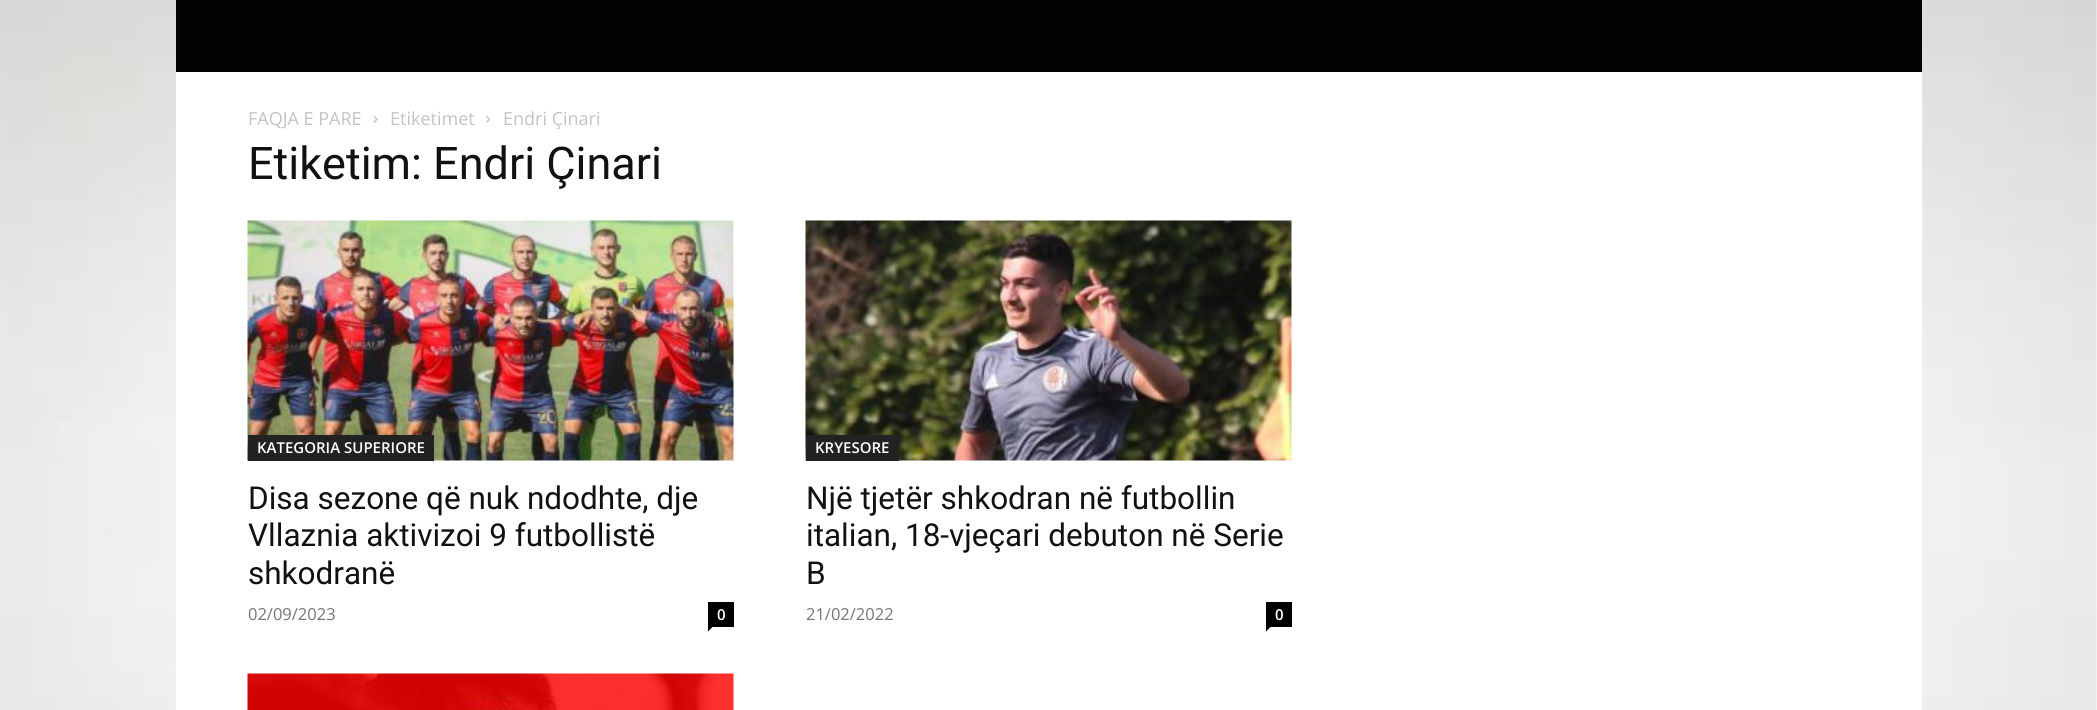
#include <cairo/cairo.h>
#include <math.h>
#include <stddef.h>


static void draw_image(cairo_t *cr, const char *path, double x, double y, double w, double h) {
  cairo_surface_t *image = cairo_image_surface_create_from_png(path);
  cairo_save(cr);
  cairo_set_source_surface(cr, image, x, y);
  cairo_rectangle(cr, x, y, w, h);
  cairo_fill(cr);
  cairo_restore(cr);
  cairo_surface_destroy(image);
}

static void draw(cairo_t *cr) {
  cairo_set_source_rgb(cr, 1, 1, 1);
  cairo_paint(cr);
  draw_image(cr, "images/1.png", 0, 0, 2097, 710);
  cairo_set_source_rgb(cr, 2 / 255.0, 2 / 255.0, 2 / 255.0);
  cairo_rectangle(cr, 176, 0, 1746, 72);
  cairo_fill(cr);
  cairo_set_source_rgb(cr, 1, 1, 1);
  cairo_rectangle(cr, 176, 72, 1746, 638);
  cairo_fill(cr);
  draw_image(cr, "images/2.png", 373, 116, 5, 7);
  draw_image(cr, "images/3.png", 486, 116, 4, 7);
  draw_image(cr, "images/4.png", 247, 220, 487, 241);
  cairo_set_source_rgb(cr, 34 / 255.0, 34 / 255.0, 34 / 255.0);
  cairo_rectangle(cr, 248, 435, 186, 26);
  cairo_fill(cr);
  cairo_set_source_rgb(cr, 0, 0, 0);
  cairo_rectangle(cr, 708, 602, 26, 25);
  cairo_fill(cr);
  cairo_new_path(cr);
  cairo_move_to(cr, 708, 627);
  cairo_line_to(cr, 712.5, 627);
  cairo_line_to(cr, 708, 631.5);
  cairo_close_path(cr);
  cairo_fill(cr);
  draw_image(cr, "images/5.png", 805, 220, 487, 241);
  cairo_set_source_rgb(cr, 34 / 255.0, 34 / 255.0, 34 / 255.0);
  cairo_rectangle(cr, 806, 435, 93, 26);
  cairo_fill(cr);
  cairo_set_source_rgb(cr, 0, 0, 0);
  cairo_rectangle(cr, 1266, 602, 26, 25);
  cairo_fill(cr);
  cairo_new_path(cr);
  cairo_move_to(cr, 1266, 627);
  cairo_line_to(cr, 1270.5, 627);
  cairo_line_to(cr, 1266, 631.5);
  cairo_close_path(cr);
  cairo_fill(cr);
  draw_image(cr, "images/6.png", 247, 673, 487, 37);
  cairo_select_font_face(cr, "Open Sans", CAIRO_FONT_SLANT_NORMAL, CAIRO_FONT_WEIGHT_NORMAL);
  cairo_set_font_size(cr, 18);
  cairo_set_source_rgb(cr, 195 / 255.0, 195 / 255.0, 195 / 255.0);
  cairo_move_to(cr, 248, 125);
  cairo_show_text(cr, "FAQJA E PARE");
  cairo_move_to(cr, 390, 125);
  cairo_show_text(cr, "Etiketimet");
  cairo_move_to(cr, 503, 125);
  cairo_show_text(cr, "Endri Çinari");
  cairo_select_font_face(cr, "Roboto", CAIRO_FONT_SLANT_NORMAL, CAIRO_FONT_WEIGHT_NORMAL);
  cairo_set_font_size(cr, 45);
  cairo_set_source_rgb(cr, 17 / 255.0, 17 / 255.0, 17 / 255.0);
  cairo_move_to(cr, 248, 179);
  cairo_show_text(cr, "Etiketim: Endri Çinari");
  cairo_select_font_face(cr, "Open Sans SemiBold", CAIRO_FONT_SLANT_NORMAL, CAIRO_FONT_WEIGHT_NORMAL);
  cairo_set_font_size(cr, 15);
  cairo_set_source_rgb(cr, 1, 1, 1);
  cairo_move_to(cr, 257, 453);
  cairo_show_text(cr, "KATEGORIA SUPERIORE");
  cairo_select_font_face(cr, "Roboto", CAIRO_FONT_SLANT_NORMAL, CAIRO_FONT_WEIGHT_NORMAL);
  cairo_set_font_size(cr, 31.5);
  cairo_set_source_rgb(cr, 17 / 255.0, 17 / 255.0, 17 / 255.0);
  cairo_move_to(cr, 248, 509);
  cairo_show_text(cr, "Disa sezone që nuk ndodhte, dje");
  cairo_move_to(cr, 248, 546);
  cairo_show_text(cr, "Vllaznia aktivizoi 9 futbollistë");
  cairo_move_to(cr, 248, 584);
  cairo_show_text(cr, "shkodranë");
  cairo_select_font_face(cr, "Open Sans", CAIRO_FONT_SLANT_NORMAL, CAIRO_FONT_WEIGHT_NORMAL);
  cairo_set_font_size(cr, 16.5);
  cairo_set_source_rgb(cr, 118 / 255.0, 118 / 255.0, 118 / 255.0);
  cairo_move_to(cr, 248, 620);
  cairo_show_text(cr, "02/09/2023");
  cairo_select_font_face(cr, "Open Sans SemiBold", CAIRO_FONT_SLANT_NORMAL, CAIRO_FONT_WEIGHT_NORMAL);
  cairo_set_font_size(cr, 15);
  cairo_set_source_rgb(cr, 1, 1, 1);
  cairo_move_to(cr, 717, 620);
  cairo_show_text(cr, "0");
  cairo_move_to(cr, 815, 453);
  cairo_show_text(cr, "KRYESORE");
  cairo_select_font_face(cr, "Roboto", CAIRO_FONT_SLANT_NORMAL, CAIRO_FONT_WEIGHT_NORMAL);
  cairo_set_font_size(cr, 31.5);
  cairo_set_source_rgb(cr, 17 / 255.0, 17 / 255.0, 17 / 255.0);
  cairo_move_to(cr, 806, 509);
  cairo_show_text(cr, "Një tjetër shkodran në futbollin");
  cairo_move_to(cr, 806, 546);
  cairo_show_text(cr, "italian, 18-vjeçari debuton në Serie");
  cairo_move_to(cr, 806, 584);
  cairo_show_text(cr, "B");
  cairo_select_font_face(cr, "Open Sans", CAIRO_FONT_SLANT_NORMAL, CAIRO_FONT_WEIGHT_NORMAL);
  cairo_set_font_size(cr, 16.5);
  cairo_set_source_rgb(cr, 118 / 255.0, 118 / 255.0, 118 / 255.0);
  cairo_move_to(cr, 806, 620);
  cairo_show_text(cr, "21/02/2022");
  cairo_select_font_face(cr, "Open Sans SemiBold", CAIRO_FONT_SLANT_NORMAL, CAIRO_FONT_WEIGHT_NORMAL);
  cairo_set_font_size(cr, 15);
  cairo_set_source_rgb(cr, 1, 1, 1);
  cairo_move_to(cr, 1275, 620);
  cairo_show_text(cr, "0");
}

int main(void) {
  cairo_surface_t *surface = cairo_image_surface_create(CAIRO_FORMAT_RGB24, 2097, 710);
  cairo_t *cr = cairo_create(surface);
  cairo_font_options_t *options = cairo_font_options_create();
  cairo_font_options_set_hint_metrics(options, CAIRO_HINT_METRICS_OFF);
  cairo_font_options_set_hint_style(options, CAIRO_HINT_STYLE_NONE);
  cairo_set_font_options(cr, options);
  cairo_set_miter_limit(cr, 4);
  draw(cr);
  cairo_surface_write_to_png(surface, "out.png");
  cairo_font_options_destroy(options);
  cairo_destroy(cr);
  cairo_surface_destroy(surface);
  return 0;
}
